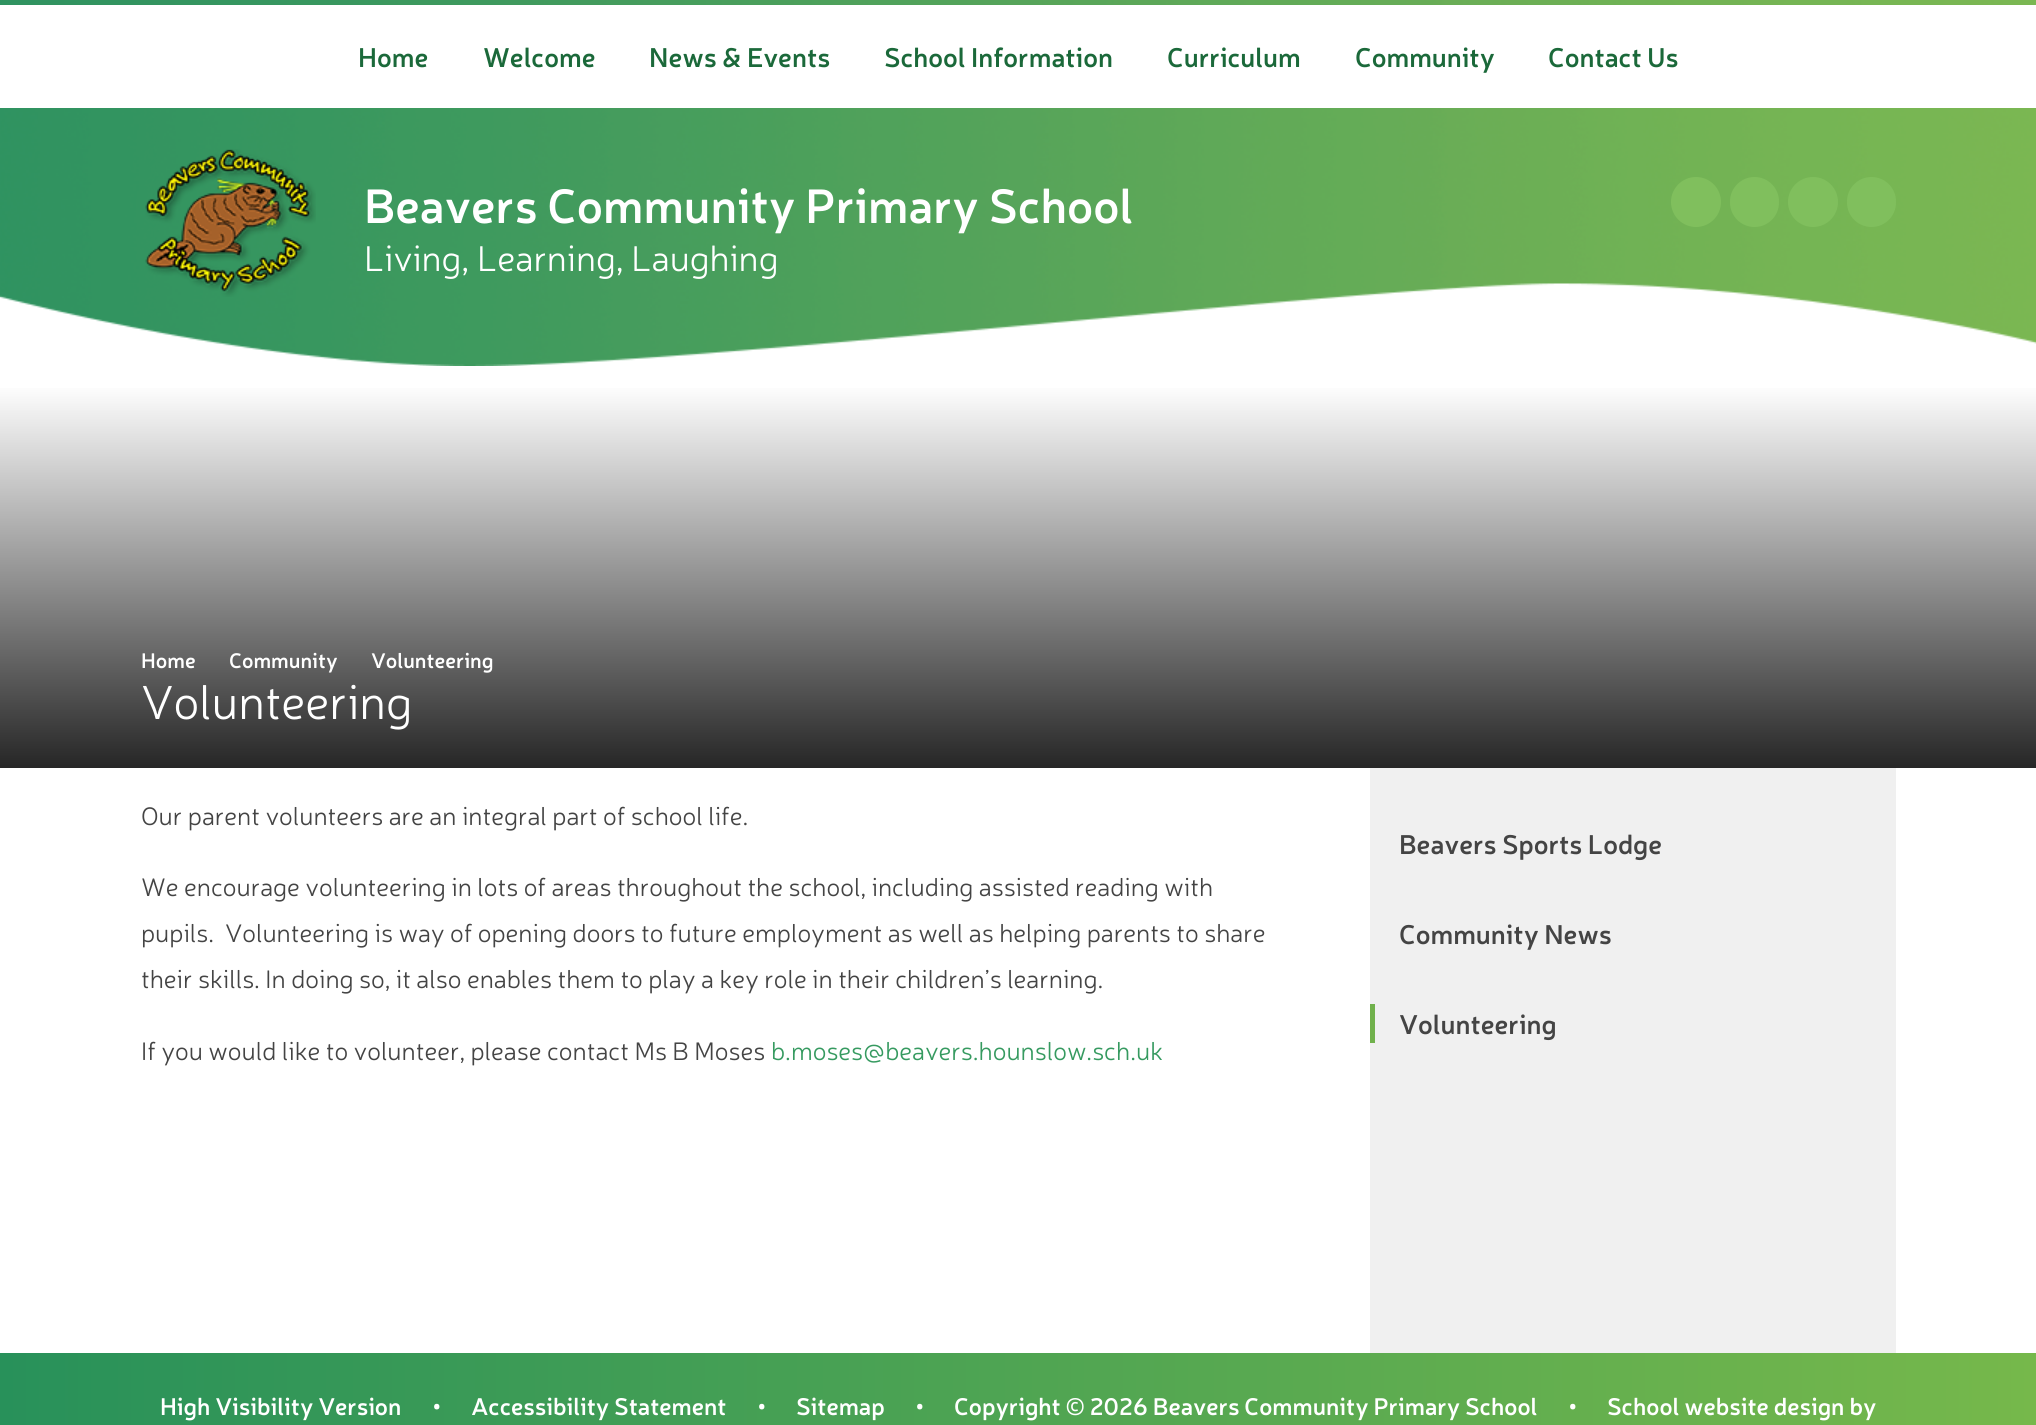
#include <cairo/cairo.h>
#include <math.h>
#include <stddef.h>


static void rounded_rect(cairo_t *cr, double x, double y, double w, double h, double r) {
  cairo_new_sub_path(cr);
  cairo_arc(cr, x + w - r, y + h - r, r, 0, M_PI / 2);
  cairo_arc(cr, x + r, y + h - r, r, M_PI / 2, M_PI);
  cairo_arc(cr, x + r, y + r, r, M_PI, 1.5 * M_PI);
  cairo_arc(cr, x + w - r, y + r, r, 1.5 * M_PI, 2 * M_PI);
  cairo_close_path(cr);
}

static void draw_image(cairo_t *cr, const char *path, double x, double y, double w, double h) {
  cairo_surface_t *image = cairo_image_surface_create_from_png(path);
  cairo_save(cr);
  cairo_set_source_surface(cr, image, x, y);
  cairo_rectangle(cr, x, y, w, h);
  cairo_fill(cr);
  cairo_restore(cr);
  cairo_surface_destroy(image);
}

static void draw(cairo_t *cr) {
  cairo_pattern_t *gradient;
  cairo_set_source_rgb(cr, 1, 1, 1);
  cairo_paint(cr);
  draw_image(cr, "images/1.png", 0, 0, 2036, 366);
  cairo_set_source_rgb(cr, 1, 1, 1);
  cairo_rectangle(cr, 0, 5, 2036, 103);
  cairo_fill(cr);
  cairo_set_source_rgb(cr, 128 / 255.0, 191 / 255.0, 93 / 255.0);
  cairo_arc(cr, 1696, 202, 25, 0, 2 * M_PI);
  cairo_fill(cr);
  rounded_rect(cr, 1730, 177, 49, 50, 24.5);
  cairo_fill(cr);
  cairo_arc(cr, 1813, 202, 25, 0, 2 * M_PI);
  cairo_fill(cr);
  rounded_rect(cr, 1847, 177, 49, 50, 24.5);
  cairo_fill(cr);
  draw_image(cr, "images/2.png", 145, 149, 171, 148);
  gradient = cairo_pattern_create_linear(1019, 384, 1019, 768);
  cairo_pattern_add_color_stop_rgba(gradient, 0, 1, 1, 1, 1);
  cairo_pattern_add_color_stop_rgba(gradient, 1, 38 / 255.0, 38 / 255.0, 38 / 255.0, 1);
  cairo_set_source(cr, gradient);
  cairo_pattern_destroy(gradient);
  cairo_rectangle(cr, 0, 388, 2036, 380);
  cairo_fill(cr);
  cairo_set_source_rgb(cr, 240 / 255.0, 240 / 255.0, 240 / 255.0);
  cairo_rectangle(cr, 1370, 768, 526, 585);
  cairo_fill(cr);
  cairo_set_source_rgb(cr, 112 / 255.0, 177 / 255.0, 76 / 255.0);
  cairo_rectangle(cr, 1370, 1004, 5, 39);
  cairo_fill(cr);
  gradient = cairo_pattern_create_linear(0, 1421, 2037, 1421);
  cairo_pattern_add_color_stop_rgba(gradient, 0, 40 / 255.0, 145 / 255.0, 90 / 255.0, 1);
  cairo_pattern_add_color_stop_rgba(gradient, 1, 118 / 255.0, 184 / 255.0, 75 / 255.0, 1);
  cairo_set_source(cr, gradient);
  cairo_pattern_destroy(gradient);
  cairo_rectangle(cr, 0, 1353, 2036, 72);
  cairo_fill(cr);
  cairo_select_font_face(cr, "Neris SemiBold", CAIRO_FONT_SLANT_NORMAL, CAIRO_FONT_WEIGHT_NORMAL);
  cairo_set_font_size(cr, 27);
  cairo_set_source_rgb(cr, 27 / 255.0, 105 / 255.0, 58 / 255.0);
  cairo_move_to(cr, 358, 67);
  cairo_show_text(cr, "Home");
  cairo_move_to(cr, 483, 67);
  cairo_show_text(cr, "Welcome");
  cairo_move_to(cr, 649, 67);
  cairo_show_text(cr, "News & Events");
  cairo_move_to(cr, 884, 67);
  cairo_show_text(cr, "School Information");
  cairo_move_to(cr, 1167, 67);
  cairo_show_text(cr, "Curriculum");
  cairo_move_to(cr, 1355, 67);
  cairo_show_text(cr, "Community");
  cairo_move_to(cr, 1548, 67);
  cairo_show_text(cr, "Contact Us");
  cairo_set_font_size(cr, 48);
  cairo_set_source_rgb(cr, 1, 1, 1);
  cairo_move_to(cr, 364, 223);
  cairo_show_text(cr, "Beavers Community Primary School");
  cairo_select_font_face(cr, "Neris Light", CAIRO_FONT_SLANT_NORMAL, CAIRO_FONT_WEIGHT_NORMAL);
  cairo_set_font_size(cr, 36);
  cairo_move_to(cr, 364, 271);
  cairo_show_text(cr, "Living, Learning, Laughing");
  cairo_select_font_face(cr, "Neris SemiBold", CAIRO_FONT_SLANT_NORMAL, CAIRO_FONT_WEIGHT_NORMAL);
  cairo_set_font_size(cr, 21);
  cairo_move_to(cr, 141, 668);
  cairo_show_text(cr, "Home");
  cairo_move_to(cr, 229, 668);
  cairo_show_text(cr, "Community");
  cairo_move_to(cr, 371, 668);
  cairo_show_text(cr, "Volunteering");
  cairo_select_font_face(cr, "Neris Light", CAIRO_FONT_SLANT_NORMAL, CAIRO_FONT_WEIGHT_NORMAL);
  cairo_set_font_size(cr, 48);
  cairo_move_to(cr, 141, 719);
  cairo_show_text(cr, "Volunteering");
  cairo_set_font_size(cr, 25.5);
  cairo_set_source_rgb(cr, 68 / 255.0, 68 / 255.0, 68 / 255.0);
  cairo_move_to(cr, 141, 825);
  cairo_show_text(cr, "Our parent volunteers are an integral part of school life.");
  cairo_move_to(cr, 141, 896);
  cairo_show_text(cr, "We encourage volunteering in lots of areas throughout the school, including assisted reading with");
  cairo_move_to(cr, 141, 942);
  cairo_show_text(cr, "pupils.  Volunteering is way of opening doors to future employment as well as helping parents to share");
  cairo_move_to(cr, 141, 988);
  cairo_show_text(cr, "their skills. In doing so, it also enables them to play a key role in their children’s learning.");
  cairo_move_to(cr, 141, 1060);
  cairo_show_text(cr, "If you would like to volunteer, please contact Ms B Moses");
  cairo_set_source_rgb(cr, 54 / 255.0, 154 / 255.0, 96 / 255.0);
  cairo_move_to(cr, 771, 1060);
  cairo_show_text(cr, "b.moses@beavers.hounslow.sch.uk");
  cairo_select_font_face(cr, "Neris SemiBold", CAIRO_FONT_SLANT_NORMAL, CAIRO_FONT_WEIGHT_NORMAL);
  cairo_set_font_size(cr, 27);
  cairo_set_source_rgb(cr, 68 / 255.0, 68 / 255.0, 68 / 255.0);
  cairo_move_to(cr, 1399, 854);
  cairo_show_text(cr, "Beavers Sports Lodge");
  cairo_move_to(cr, 1399, 944);
  cairo_show_text(cr, "Community News");
  cairo_move_to(cr, 1399, 1034);
  cairo_show_text(cr, "Volunteering");
  cairo_set_font_size(cr, 24);
  cairo_set_source_rgb(cr, 1, 1, 1);
  cairo_move_to(cr, 160, 1415);
  cairo_show_text(cr, "High Visibility Version");
  cairo_move_to(cr, 432, 1415);
  cairo_show_text(cr, "•");
  cairo_move_to(cr, 471, 1415);
  cairo_show_text(cr, "Accessibility Statement");
  cairo_move_to(cr, 757, 1415);
  cairo_show_text(cr, "•");
  cairo_move_to(cr, 796, 1415);
  cairo_show_text(cr, "Sitemap");
  cairo_move_to(cr, 915, 1415);
  cairo_show_text(cr, "•");
  cairo_move_to(cr, 954, 1415);
  cairo_show_text(cr, "Copyright © 2026 Beavers Community Primary School");
  cairo_move_to(cr, 1568, 1415);
  cairo_show_text(cr, "•");
  cairo_move_to(cr, 1607, 1415);
  cairo_show_text(cr, "School website design by");
}

int main(void) {
  cairo_surface_t *surface = cairo_image_surface_create(CAIRO_FORMAT_RGB24, 2036, 1425);
  cairo_t *cr = cairo_create(surface);
  cairo_font_options_t *options = cairo_font_options_create();
  cairo_font_options_set_hint_metrics(options, CAIRO_HINT_METRICS_OFF);
  cairo_font_options_set_hint_style(options, CAIRO_HINT_STYLE_NONE);
  cairo_set_font_options(cr, options);
  cairo_set_miter_limit(cr, 4);
  draw(cr);
  cairo_surface_write_to_png(surface, "out.png");
  cairo_font_options_destroy(options);
  cairo_destroy(cr);
  cairo_surface_destroy(surface);
  return 0;
}
